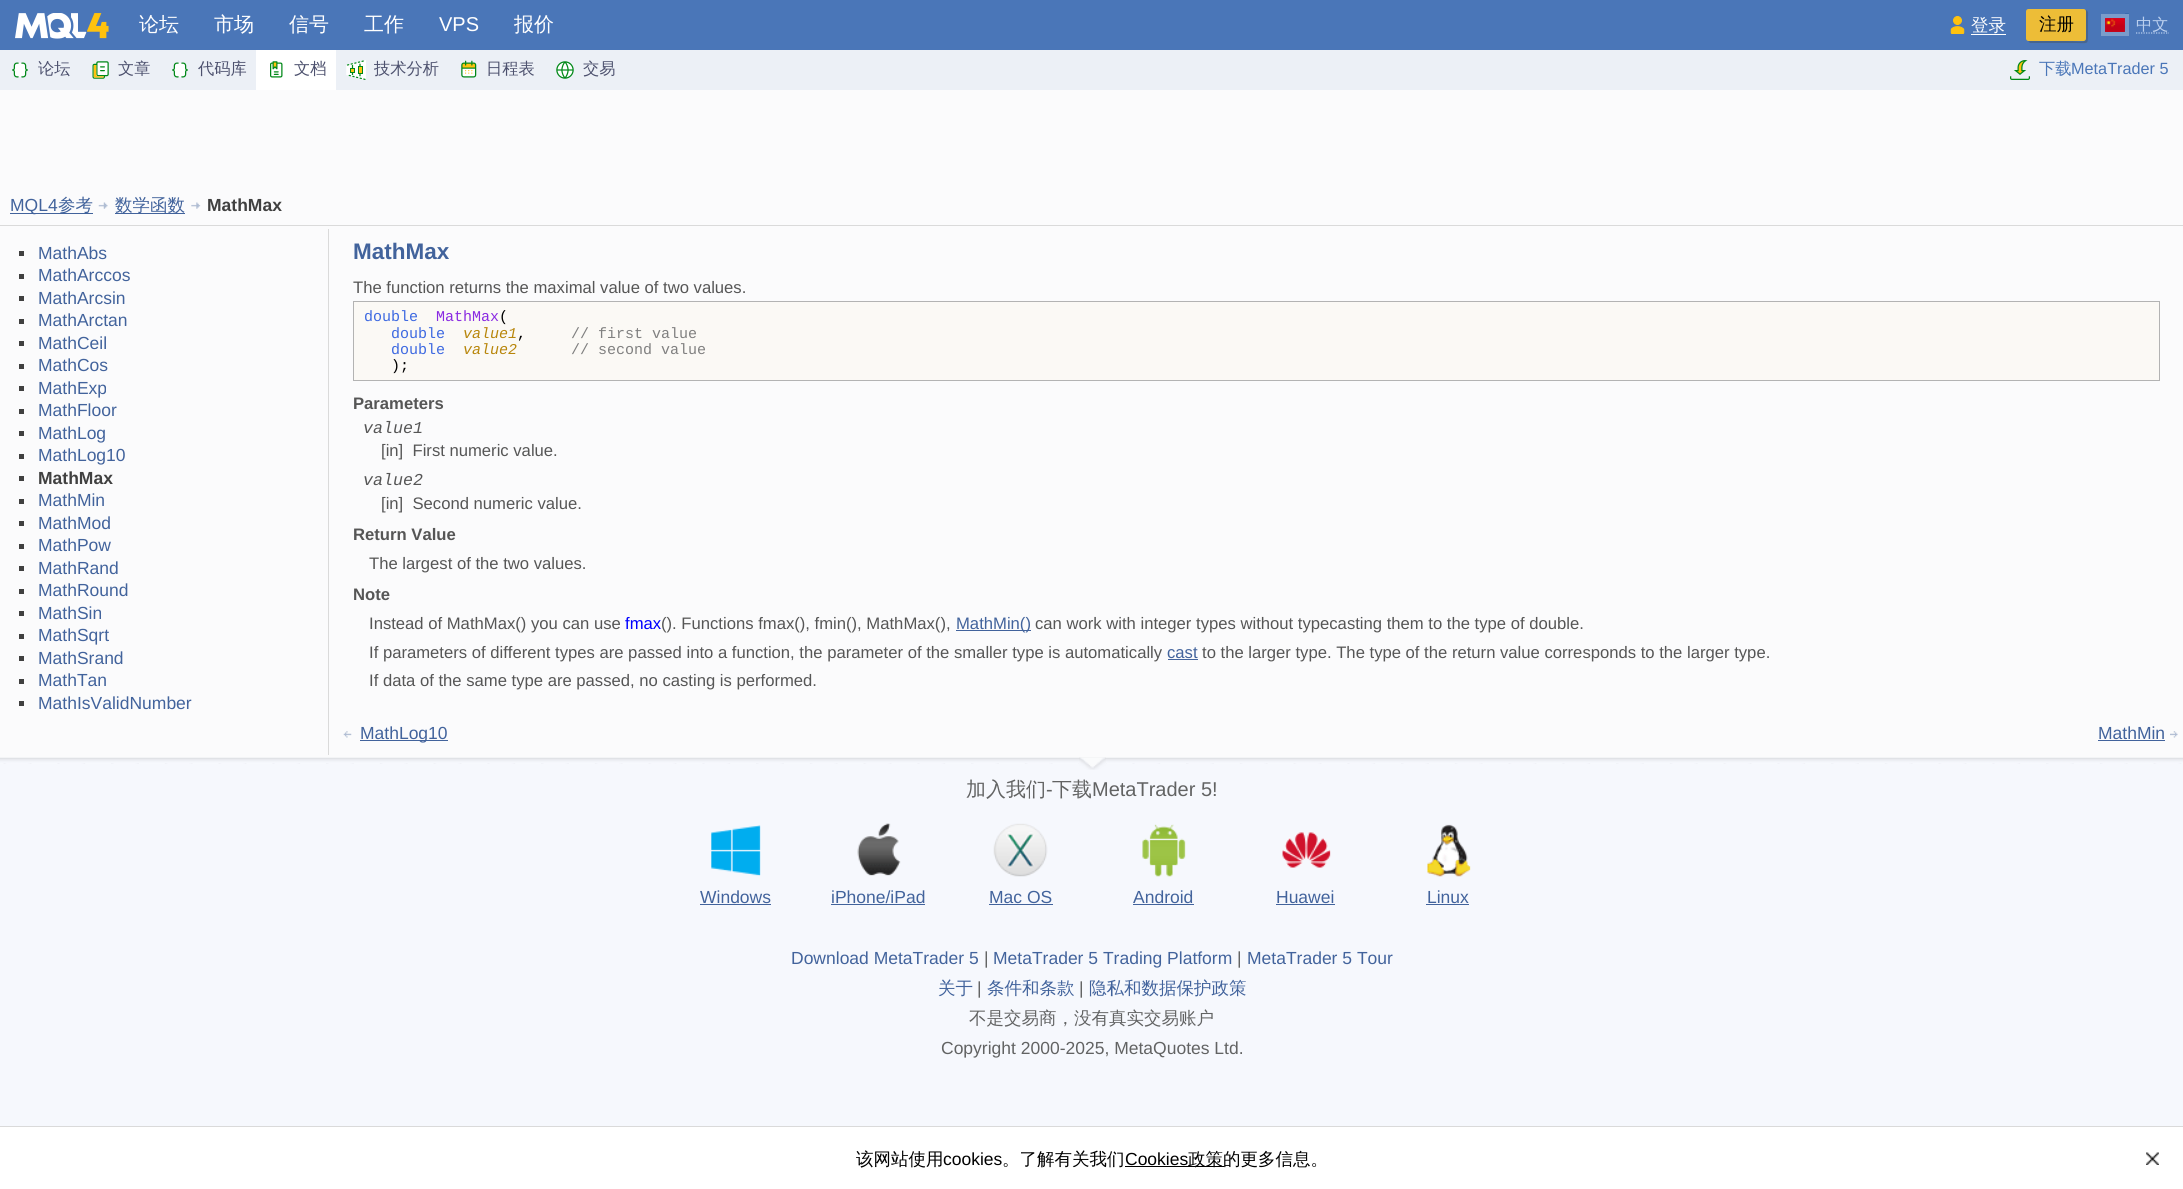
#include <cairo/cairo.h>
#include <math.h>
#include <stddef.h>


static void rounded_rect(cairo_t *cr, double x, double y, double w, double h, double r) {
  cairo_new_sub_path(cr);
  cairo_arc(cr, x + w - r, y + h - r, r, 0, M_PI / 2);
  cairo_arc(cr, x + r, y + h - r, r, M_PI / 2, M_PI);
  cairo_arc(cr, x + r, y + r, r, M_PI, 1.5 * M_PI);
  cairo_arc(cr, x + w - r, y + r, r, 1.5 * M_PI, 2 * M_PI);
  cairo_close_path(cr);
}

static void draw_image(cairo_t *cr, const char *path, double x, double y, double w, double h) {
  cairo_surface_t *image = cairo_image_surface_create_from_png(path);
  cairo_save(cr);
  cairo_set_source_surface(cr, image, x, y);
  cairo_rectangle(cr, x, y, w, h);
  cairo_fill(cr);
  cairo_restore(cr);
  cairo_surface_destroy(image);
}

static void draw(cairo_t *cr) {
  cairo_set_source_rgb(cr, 246 / 255.0, 248 / 255.0, 253 / 255.0);
  cairo_paint(cr);
  cairo_set_source_rgb(cr, 251 / 255.0, 251 / 255.0, 252 / 255.0);
  cairo_rectangle(cr, 0, 90, 2183, 668);
  cairo_fill(cr);
  cairo_set_source_rgb(cr, 74 / 255.0, 118 / 255.0, 184 / 255.0);
  cairo_rectangle(cr, 0, 0, 2183, 50);
  cairo_fill(cr);
  draw_image(cr, "images/1.png", 15, 13, 94, 26);
  cairo_set_source_rgb(cr, 236 / 255.0, 240 / 255.0, 246 / 255.0);
  cairo_rectangle(cr, 0, 50, 2183, 40);
  cairo_fill(cr);
  draw_image(cr, "images/2.png", 12, 62, 16, 16);
  draw_image(cr, "images/3.png", 92, 61, 17, 18);
  draw_image(cr, "images/2.png", 172, 62, 16, 16);
  cairo_set_source_rgb(cr, 1, 1, 1);
  cairo_rectangle(cr, 256, 50, 80, 40);
  cairo_fill(cr);
  draw_image(cr, "images/4.png", 270, 61, 13, 17);
  draw_image(cr, "images/5.png", 346, 60, 20, 20);
  draw_image(cr, "images/6.png", 461, 60, 16, 18);
  draw_image(cr, "images/7.png", 556, 61, 18, 18);
  draw_image(cr, "images/8.png", 2010, 60, 20, 20);
  draw_image(cr, "images/9.png", 1950, 16, 15, 18);
  cairo_rectangle(cr, 1971, 34, 35, 1);
  cairo_fill(cr);
  cairo_set_source_rgb(cr, 71 / 255.0, 101 / 255.0, 143 / 255.0);
  cairo_new_path(cr);
  cairo_move_to(cr, 2028, 41);
  cairo_line_to(cr, 2030, 43);
  cairo_line_to(cr, 2076, 43);
  cairo_curve_to(cr, 2087, 43, 2088, 45, 2088, 36);
  cairo_line_to(cr, 2088, 17);
  cairo_curve_to(cr, 2088, 15, 2089, 11, 2086, 10);
  cairo_line_to(cr, 2086, 25);
  cairo_curve_to(cr, 2086, 46, 2089, 41, 2065, 41);
  cairo_close_path(cr);
  cairo_fill(cr);
  cairo_set_source_rgb(cr, 237 / 255.0, 189 / 255.0, 55 / 255.0);
  rounded_rect(cr, 2026, 9, 60, 32, 2.5);
  cairo_fill(cr);
  draw_image(cr, "images/10.png", 2105, 13, 24, 19);
  cairo_rectangle(cr, 2103, 16, 24, 18);
  cairo_set_source_rgb(cr, 122 / 255.0, 156 / 255.0, 203 / 255.0);
  cairo_set_line_width(cr, 4);
  cairo_stroke(cr);
  cairo_new_path(cr);
  cairo_move_to(cr, 2136, 33);
  cairo_line_to(cr, 2169, 33);
  cairo_set_source_rgb(cr, 186 / 255.0, 207 / 255.0, 238 / 255.0);
  cairo_set_line_width(cr, 1.2);
  cairo_set_dash(cr, (double[]){1.25, 1.25}, 2, 0);
  cairo_stroke(cr);
  cairo_set_source_rgb(cr, 66 / 255.0, 99 / 255.0, 156 / 255.0);
  cairo_rectangle(cr, 10, 213, 83, 1);
  cairo_fill(cr);
  draw_image(cr, "images/11.png", 98, 202, 10, 7);
  cairo_rectangle(cr, 115, 213, 70, 1);
  cairo_fill(cr);
  draw_image(cr, "images/12.png", 191, 202, 10, 7);
  cairo_set_source_rgb(cr, 218 / 255.0, 218 / 255.0, 218 / 255.0);
  cairo_rectangle(cr, 0, 225, 2183, 1);
  cairo_fill(cr);
  cairo_rectangle(cr, 328, 229, 1, 526);
  cairo_fill(cr);
  cairo_set_source_rgb(cr, 64 / 255.0, 64 / 255.0, 64 / 255.0);
  cairo_rectangle(cr, 19, 251, 5, 5);
  cairo_fill(cr);
  cairo_rectangle(cr, 19, 274, 5, 5);
  cairo_fill(cr);
  cairo_rectangle(cr, 19, 296, 5, 5);
  cairo_fill(cr);
  cairo_rectangle(cr, 19, 319, 5, 5);
  cairo_fill(cr);
  cairo_rectangle(cr, 19, 341, 5, 5);
  cairo_fill(cr);
  cairo_rectangle(cr, 19, 364, 5, 5);
  cairo_fill(cr);
  cairo_rectangle(cr, 19, 386, 5, 5);
  cairo_fill(cr);
  cairo_rectangle(cr, 19, 409, 5, 5);
  cairo_fill(cr);
  cairo_rectangle(cr, 19, 431, 5, 5);
  cairo_fill(cr);
  cairo_rectangle(cr, 19, 454, 5, 5);
  cairo_fill(cr);
  cairo_rectangle(cr, 19, 476, 5, 5);
  cairo_fill(cr);
  cairo_rectangle(cr, 19, 499, 5, 5);
  cairo_fill(cr);
  cairo_rectangle(cr, 19, 521, 5, 5);
  cairo_fill(cr);
  cairo_rectangle(cr, 19, 544, 5, 5);
  cairo_fill(cr);
  cairo_rectangle(cr, 19, 566, 5, 5);
  cairo_fill(cr);
  cairo_rectangle(cr, 19, 589, 5, 5);
  cairo_fill(cr);
  cairo_rectangle(cr, 19, 611, 5, 5);
  cairo_fill(cr);
  cairo_rectangle(cr, 19, 634, 5, 5);
  cairo_fill(cr);
  cairo_rectangle(cr, 19, 656, 5, 5);
  cairo_fill(cr);
  cairo_rectangle(cr, 19, 679, 5, 5);
  cairo_fill(cr);
  cairo_rectangle(cr, 19, 701, 5, 5);
  cairo_fill(cr);
  cairo_set_source_rgb(cr, 251 / 255.0, 249 / 255.0, 245 / 255.0);
  cairo_rectangle(cr, 353.5, 301.5, 1806, 79);
  cairo_fill_preserve(cr);
  cairo_set_source_rgb(cr, 179 / 255.0, 179 / 255.0, 179 / 255.0);
  cairo_set_line_width(cr, 1);
  cairo_set_dash(cr, NULL, 0, 0);
  cairo_stroke(cr);
  cairo_set_source_rgb(cr, 66 / 255.0, 99 / 255.0, 156 / 255.0);
  cairo_rectangle(cr, 956, 630, 75, 1);
  cairo_fill(cr);
  cairo_rectangle(cr, 1168, 659, 30, 1);
  cairo_fill(cr);
  draw_image(cr, "images/13.png", 343, 731, 9, 7);
  cairo_rectangle(cr, 360, 740, 88, 1);
  cairo_fill(cr);
  cairo_rectangle(cr, 2098, 740, 67, 1);
  cairo_fill(cr);
  draw_image(cr, "images/14.png", 2170, 731, 8, 7);
  draw_image(cr, "images/15.png", 0, 757, 2183, 7);
  draw_image(cr, "images/16.png", 1079, 757, 27, 13);
  draw_image(cr, "images/17.png", 711, 825, 50, 51);
  cairo_rectangle(cr, 700, 904, 71, 1);
  cairo_fill(cr);
  draw_image(cr, "images/18.png", 857, 823, 44, 53);
  cairo_rectangle(cr, 831, 904, 94, 1);
  cairo_fill(cr);
  draw_image(cr, "images/19.png", 993, 823, 55, 54);
  cairo_rectangle(cr, 989, 904, 64, 1);
  cairo_fill(cr);
  draw_image(cr, "images/20.png", 1142, 824, 44, 53);
  cairo_rectangle(cr, 1133, 904, 61, 1);
  cairo_fill(cr);
  draw_image(cr, "images/21.png", 1282, 832, 49, 36);
  cairo_rectangle(cr, 1276, 904, 59, 1);
  cairo_fill(cr);
  draw_image(cr, "images/22.png", 1427, 824, 44, 53);
  cairo_rectangle(cr, 1426, 904, 43, 1);
  cairo_fill(cr);
  cairo_set_source_rgb(cr, 1, 1, 1);
  cairo_rectangle(cr, 0, 1127, 2183, 62);
  cairo_fill(cr);
  cairo_set_source_rgb(cr, 218 / 255.0, 218 / 255.0, 218 / 255.0);
  cairo_rectangle(cr, 0, 1126, 2183, 1);
  cairo_fill(cr);
  cairo_set_source_rgb(cr, 0, 0, 0);
  cairo_rectangle(cr, 1125, 1166, 99, 1);
  cairo_fill(cr);
  draw_image(cr, "images/23.png", 2146, 1152, 13, 13);
  cairo_select_font_face(cr, "WenQuanYi Zen Hei Medium", CAIRO_FONT_SLANT_NORMAL, CAIRO_FONT_WEIGHT_NORMAL);
  cairo_set_font_size(cr, 20);
  cairo_set_source_rgb(cr, 1, 1, 1);
  cairo_move_to(cr, 139, 31);
  cairo_show_text(cr, "论坛");
  cairo_move_to(cr, 214, 31);
  cairo_show_text(cr, "市场");
  cairo_move_to(cr, 289, 31);
  cairo_show_text(cr, "信号");
  cairo_move_to(cr, 364, 31);
  cairo_show_text(cr, "工作");
  cairo_select_font_face(cr, "Liberation Sans", CAIRO_FONT_SLANT_NORMAL, CAIRO_FONT_WEIGHT_NORMAL);
  cairo_move_to(cr, 439, 31);
  cairo_show_text(cr, "VPS");
  cairo_select_font_face(cr, "WenQuanYi Zen Hei Medium", CAIRO_FONT_SLANT_NORMAL, CAIRO_FONT_WEIGHT_NORMAL);
  cairo_move_to(cr, 514, 31);
  cairo_show_text(cr, "报价");
  cairo_set_font_size(cr, 16.25);
  cairo_set_source_rgb(cr, 77 / 255.0, 81 / 255.0, 110 / 255.0);
  cairo_move_to(cr, 38, 74);
  cairo_show_text(cr, "论坛");
  cairo_move_to(cr, 118, 74);
  cairo_show_text(cr, "文章");
  cairo_move_to(cr, 198, 74);
  cairo_show_text(cr, "代码库");
  cairo_move_to(cr, 294, 74);
  cairo_show_text(cr, "文档");
  cairo_move_to(cr, 374, 74);
  cairo_show_text(cr, "技术分析");
  cairo_move_to(cr, 486, 74);
  cairo_show_text(cr, "日程表");
  cairo_move_to(cr, 583, 74);
  cairo_show_text(cr, "交易");
  cairo_set_source_rgb(cr, 74 / 255.0, 118 / 255.0, 184 / 255.0);
  cairo_move_to(cr, 2039, 74);
  cairo_show_text(cr, "下载");
  cairo_select_font_face(cr, "Liberation Sans", CAIRO_FONT_SLANT_NORMAL, CAIRO_FONT_WEIGHT_NORMAL);
  cairo_move_to(cr, 2071, 74);
  cairo_show_text(cr, "MetaTrader 5");
  cairo_select_font_face(cr, "WenQuanYi Zen Hei Medium", CAIRO_FONT_SLANT_NORMAL, CAIRO_FONT_WEIGHT_NORMAL);
  cairo_set_font_size(cr, 17.5);
  cairo_set_source_rgb(cr, 1, 1, 1);
  cairo_move_to(cr, 1971, 31);
  cairo_show_text(cr, "登录");
  cairo_set_source_rgb(cr, 0, 0, 0);
  cairo_move_to(cr, 2039, 30);
  cairo_show_text(cr, "注册");
  cairo_set_font_size(cr, 16.25);
  cairo_set_source_rgb(cr, 186 / 255.0, 207 / 255.0, 238 / 255.0);
  cairo_move_to(cr, 2136, 30);
  cairo_show_text(cr, "中文");
  cairo_select_font_face(cr, "Liberation Sans", CAIRO_FONT_SLANT_NORMAL, CAIRO_FONT_WEIGHT_NORMAL);
  cairo_set_font_size(cr, 17.5);
  cairo_set_source_rgb(cr, 66 / 255.0, 99 / 255.0, 156 / 255.0);
  cairo_move_to(cr, 10, 211);
  cairo_show_text(cr, "MQL4");
  cairo_select_font_face(cr, "WenQuanYi Zen Hei Medium", CAIRO_FONT_SLANT_NORMAL, CAIRO_FONT_WEIGHT_NORMAL);
  cairo_move_to(cr, 58, 211);
  cairo_show_text(cr, "参考");
  cairo_move_to(cr, 115, 211);
  cairo_show_text(cr, "数学函数");
  cairo_select_font_face(cr, "Liberation Sans", CAIRO_FONT_SLANT_NORMAL, CAIRO_FONT_WEIGHT_BOLD);
  cairo_set_source_rgb(cr, 64 / 255.0, 64 / 255.0, 64 / 255.0);
  cairo_move_to(cr, 207, 211);
  cairo_show_text(cr, "MathMax");
  cairo_select_font_face(cr, "Liberation Sans", CAIRO_FONT_SLANT_NORMAL, CAIRO_FONT_WEIGHT_NORMAL);
  cairo_set_source_rgb(cr, 66 / 255.0, 99 / 255.0, 156 / 255.0);
  cairo_move_to(cr, 38, 259);
  cairo_show_text(cr, "MathAbs");
  cairo_move_to(cr, 38, 281);
  cairo_show_text(cr, "MathArccos");
  cairo_move_to(cr, 38, 304);
  cairo_show_text(cr, "MathArcsin");
  cairo_move_to(cr, 38, 326);
  cairo_show_text(cr, "MathArctan");
  cairo_move_to(cr, 38, 349);
  cairo_show_text(cr, "MathCeil");
  cairo_move_to(cr, 38, 371);
  cairo_show_text(cr, "MathCos");
  cairo_move_to(cr, 38, 394);
  cairo_show_text(cr, "MathExp");
  cairo_move_to(cr, 38, 416);
  cairo_show_text(cr, "MathFloor");
  cairo_move_to(cr, 38, 439);
  cairo_show_text(cr, "MathLog");
  cairo_move_to(cr, 38, 461);
  cairo_show_text(cr, "MathLog10");
  cairo_select_font_face(cr, "Liberation Sans", CAIRO_FONT_SLANT_NORMAL, CAIRO_FONT_WEIGHT_BOLD);
  cairo_set_source_rgb(cr, 64 / 255.0, 64 / 255.0, 64 / 255.0);
  cairo_move_to(cr, 38, 484);
  cairo_show_text(cr, "MathMax");
  cairo_select_font_face(cr, "Liberation Sans", CAIRO_FONT_SLANT_NORMAL, CAIRO_FONT_WEIGHT_NORMAL);
  cairo_set_source_rgb(cr, 66 / 255.0, 99 / 255.0, 156 / 255.0);
  cairo_move_to(cr, 38, 506);
  cairo_show_text(cr, "MathMin");
  cairo_move_to(cr, 38, 529);
  cairo_show_text(cr, "MathMod");
  cairo_move_to(cr, 38, 551);
  cairo_show_text(cr, "MathPow");
  cairo_move_to(cr, 38, 574);
  cairo_show_text(cr, "MathRand");
  cairo_move_to(cr, 38, 596);
  cairo_show_text(cr, "MathRound");
  cairo_move_to(cr, 38, 619);
  cairo_show_text(cr, "MathSin");
  cairo_move_to(cr, 38, 641);
  cairo_show_text(cr, "MathSqrt");
  cairo_move_to(cr, 38, 664);
  cairo_show_text(cr, "MathSrand");
  cairo_move_to(cr, 38, 686);
  cairo_show_text(cr, "MathTan");
  cairo_move_to(cr, 38, 709);
  cairo_show_text(cr, "MathIsValidNumber");
  cairo_select_font_face(cr, "Liberation Sans", CAIRO_FONT_SLANT_NORMAL, CAIRO_FONT_WEIGHT_BOLD);
  cairo_set_font_size(cr, 22.5);
  cairo_move_to(cr, 353, 259);
  cairo_show_text(cr, "MathMax");
  cairo_select_font_face(cr, "Liberation Sans", CAIRO_FONT_SLANT_NORMAL, CAIRO_FONT_WEIGHT_NORMAL);
  cairo_set_font_size(cr, 16.65);
  cairo_set_source_rgb(cr, 86 / 255.0, 86 / 255.0, 86 / 255.0);
  cairo_move_to(cr, 353, 293);
  cairo_show_text(cr, "The function returns the maximal value of two values.");
  cairo_select_font_face(cr, "Liberation Mono", CAIRO_FONT_SLANT_NORMAL, CAIRO_FONT_WEIGHT_NORMAL);
  cairo_set_font_size(cr, 15);
  cairo_set_source_rgb(cr, 61 / 255.0, 105 / 255.0, 225 / 255.0);
  cairo_move_to(cr, 364, 321);
  cairo_show_text(cr, "double");
  cairo_set_source_rgb(cr, 138 / 255.0, 43 / 255.0, 226 / 255.0);
  cairo_move_to(cr, 436, 321);
  cairo_show_text(cr, "MathMax");
  cairo_set_source_rgb(cr, 0, 0, 0);
  cairo_move_to(cr, 499, 321);
  cairo_show_text(cr, "(");
  cairo_set_source_rgb(cr, 61 / 255.0, 105 / 255.0, 225 / 255.0);
  cairo_move_to(cr, 391, 338);
  cairo_show_text(cr, "double");
  cairo_select_font_face(cr, "Liberation Mono", CAIRO_FONT_SLANT_ITALIC, CAIRO_FONT_WEIGHT_NORMAL);
  cairo_set_source_rgb(cr, 184 / 255.0, 134 / 255.0, 11 / 255.0);
  cairo_move_to(cr, 463, 338);
  cairo_show_text(cr, "value1");
  cairo_select_font_face(cr, "Liberation Mono", CAIRO_FONT_SLANT_NORMAL, CAIRO_FONT_WEIGHT_NORMAL);
  cairo_set_source_rgb(cr, 0, 0, 0);
  cairo_move_to(cr, 517, 338);
  cairo_show_text(cr, ",");
  cairo_set_source_rgb(cr, 128 / 255.0, 128 / 255.0, 128 / 255.0);
  cairo_move_to(cr, 571, 338);
  cairo_show_text(cr, "// first value");
  cairo_set_source_rgb(cr, 61 / 255.0, 105 / 255.0, 225 / 255.0);
  cairo_move_to(cr, 391, 354);
  cairo_show_text(cr, "double");
  cairo_select_font_face(cr, "Liberation Mono", CAIRO_FONT_SLANT_ITALIC, CAIRO_FONT_WEIGHT_NORMAL);
  cairo_set_source_rgb(cr, 184 / 255.0, 134 / 255.0, 11 / 255.0);
  cairo_move_to(cr, 463, 354);
  cairo_show_text(cr, "value2");
  cairo_select_font_face(cr, "Liberation Mono", CAIRO_FONT_SLANT_NORMAL, CAIRO_FONT_WEIGHT_NORMAL);
  cairo_set_source_rgb(cr, 128 / 255.0, 128 / 255.0, 128 / 255.0);
  cairo_move_to(cr, 571, 354);
  cairo_show_text(cr, "// second value");
  cairo_set_source_rgb(cr, 0, 0, 0);
  cairo_move_to(cr, 391, 370);
  cairo_show_text(cr, ");");
  cairo_select_font_face(cr, "Liberation Sans", CAIRO_FONT_SLANT_NORMAL, CAIRO_FONT_WEIGHT_BOLD);
  cairo_set_font_size(cr, 16.65);
  cairo_set_source_rgb(cr, 86 / 255.0, 86 / 255.0, 86 / 255.0);
  cairo_move_to(cr, 353, 409);
  cairo_show_text(cr, "Parameters");
  cairo_select_font_face(cr, "Liberation Mono", CAIRO_FONT_SLANT_ITALIC, CAIRO_FONT_WEIGHT_NORMAL);
  cairo_move_to(cr, 363, 433);
  cairo_show_text(cr, "value1");
  cairo_select_font_face(cr, "Liberation Sans", CAIRO_FONT_SLANT_NORMAL, CAIRO_FONT_WEIGHT_NORMAL);
  cairo_move_to(cr, 381, 456);
  cairo_show_text(cr, "[in]  First numeric value.");
  cairo_select_font_face(cr, "Liberation Mono", CAIRO_FONT_SLANT_ITALIC, CAIRO_FONT_WEIGHT_NORMAL);
  cairo_move_to(cr, 363, 485);
  cairo_show_text(cr, "value2");
  cairo_select_font_face(cr, "Liberation Sans", CAIRO_FONT_SLANT_NORMAL, CAIRO_FONT_WEIGHT_NORMAL);
  cairo_move_to(cr, 381, 509);
  cairo_show_text(cr, "[in]  Second numeric value.");
  cairo_select_font_face(cr, "Liberation Sans", CAIRO_FONT_SLANT_NORMAL, CAIRO_FONT_WEIGHT_BOLD);
  cairo_move_to(cr, 353, 540);
  cairo_show_text(cr, "Return Value");
  cairo_select_font_face(cr, "Liberation Sans", CAIRO_FONT_SLANT_NORMAL, CAIRO_FONT_WEIGHT_NORMAL);
  cairo_move_to(cr, 369, 569);
  cairo_show_text(cr, "The largest of the two values.");
  cairo_select_font_face(cr, "Liberation Sans", CAIRO_FONT_SLANT_NORMAL, CAIRO_FONT_WEIGHT_BOLD);
  cairo_move_to(cr, 353, 600);
  cairo_show_text(cr, "Note");
  cairo_select_font_face(cr, "Liberation Sans", CAIRO_FONT_SLANT_NORMAL, CAIRO_FONT_WEIGHT_NORMAL);
  cairo_move_to(cr, 369, 629);
  cairo_show_text(cr, "Instead of MathMax() you can use");
  cairo_set_source_rgb(cr, 0, 0, 1);
  cairo_move_to(cr, 625, 629);
  cairo_show_text(cr, "fmax");
  cairo_set_source_rgb(cr, 86 / 255.0, 86 / 255.0, 86 / 255.0);
  cairo_move_to(cr, 661, 629);
  cairo_show_text(cr, "(). Functions fmax(), fmin(), MathMax(),");
  cairo_set_source_rgb(cr, 66 / 255.0, 99 / 255.0, 156 / 255.0);
  cairo_move_to(cr, 956, 629);
  cairo_show_text(cr, "MathMin()");
  cairo_set_source_rgb(cr, 86 / 255.0, 86 / 255.0, 86 / 255.0);
  cairo_move_to(cr, 1035, 629);
  cairo_show_text(cr, "can work with integer types without typecasting them to the type of double.");
  cairo_move_to(cr, 369, 658);
  cairo_show_text(cr, "If parameters of different types are passed into a function, the parameter of the smaller type is automatically");
  cairo_set_source_rgb(cr, 66 / 255.0, 99 / 255.0, 156 / 255.0);
  cairo_move_to(cr, 1167, 658);
  cairo_show_text(cr, "cast");
  cairo_set_source_rgb(cr, 86 / 255.0, 86 / 255.0, 86 / 255.0);
  cairo_move_to(cr, 1202, 658);
  cairo_show_text(cr, "to the larger type. The type of the return value corresponds to the larger type.");
  cairo_move_to(cr, 369, 686);
  cairo_show_text(cr, "If data of the same type are passed, no casting is performed.");
  cairo_set_font_size(cr, 17.5);
  cairo_set_source_rgb(cr, 66 / 255.0, 99 / 255.0, 156 / 255.0);
  cairo_move_to(cr, 360, 739);
  cairo_show_text(cr, "MathLog10");
  cairo_move_to(cr, 2098, 739);
  cairo_show_text(cr, "MathMin");
  cairo_select_font_face(cr, "WenQuanYi Zen Hei Medium", CAIRO_FONT_SLANT_NORMAL, CAIRO_FONT_WEIGHT_NORMAL);
  cairo_set_font_size(cr, 20);
  cairo_set_source_rgb(cr, 98 / 255.0, 99 / 255.0, 99 / 255.0);
  cairo_move_to(cr, 966, 796);
  cairo_show_text(cr, "加入我们");
  cairo_select_font_face(cr, "Liberation Sans", CAIRO_FONT_SLANT_NORMAL, CAIRO_FONT_WEIGHT_NORMAL);
  cairo_move_to(cr, 1046, 796);
  cairo_show_text(cr, "-");
  cairo_select_font_face(cr, "WenQuanYi Zen Hei Medium", CAIRO_FONT_SLANT_NORMAL, CAIRO_FONT_WEIGHT_NORMAL);
  cairo_move_to(cr, 1052, 796);
  cairo_show_text(cr, "下载");
  cairo_select_font_face(cr, "Liberation Sans", CAIRO_FONT_SLANT_NORMAL, CAIRO_FONT_WEIGHT_NORMAL);
  cairo_move_to(cr, 1092, 796);
  cairo_show_text(cr, "MetaTrader 5!");
  cairo_set_font_size(cr, 17.5);
  cairo_set_source_rgb(cr, 66 / 255.0, 99 / 255.0, 156 / 255.0);
  cairo_move_to(cr, 700, 903);
  cairo_show_text(cr, "Windows");
  cairo_move_to(cr, 831, 903);
  cairo_show_text(cr, "iPhone/iPad");
  cairo_move_to(cr, 989, 903);
  cairo_show_text(cr, "Mac OS");
  cairo_move_to(cr, 1133, 903);
  cairo_show_text(cr, "Android");
  cairo_move_to(cr, 1276, 903);
  cairo_show_text(cr, "Huawei");
  cairo_move_to(cr, 1427, 903);
  cairo_show_text(cr, "Linux");
  cairo_move_to(cr, 791, 964);
  cairo_show_text(cr, "Download MetaTrader 5");
  cairo_set_source_rgb(cr, 98 / 255.0, 99 / 255.0, 99 / 255.0);
  cairo_move_to(cr, 984, 964);
  cairo_show_text(cr, "|");
  cairo_set_source_rgb(cr, 66 / 255.0, 99 / 255.0, 156 / 255.0);
  cairo_move_to(cr, 993, 964);
  cairo_show_text(cr, "MetaTrader 5 Trading Platform");
  cairo_set_source_rgb(cr, 98 / 255.0, 99 / 255.0, 99 / 255.0);
  cairo_move_to(cr, 1237, 964);
  cairo_show_text(cr, "|");
  cairo_set_source_rgb(cr, 66 / 255.0, 99 / 255.0, 156 / 255.0);
  cairo_move_to(cr, 1247, 964);
  cairo_show_text(cr, "MetaTrader 5 Tour");
  cairo_select_font_face(cr, "WenQuanYi Zen Hei Medium", CAIRO_FONT_SLANT_NORMAL, CAIRO_FONT_WEIGHT_NORMAL);
  cairo_move_to(cr, 938, 994);
  cairo_show_text(cr, "关于");
  cairo_select_font_face(cr, "Liberation Sans", CAIRO_FONT_SLANT_NORMAL, CAIRO_FONT_WEIGHT_NORMAL);
  cairo_set_source_rgb(cr, 98 / 255.0, 99 / 255.0, 99 / 255.0);
  cairo_move_to(cr, 977, 994);
  cairo_show_text(cr, "|");
  cairo_select_font_face(cr, "WenQuanYi Zen Hei Medium", CAIRO_FONT_SLANT_NORMAL, CAIRO_FONT_WEIGHT_NORMAL);
  cairo_set_source_rgb(cr, 66 / 255.0, 99 / 255.0, 156 / 255.0);
  cairo_move_to(cr, 987, 994);
  cairo_show_text(cr, "条件和条款");
  cairo_select_font_face(cr, "Liberation Sans", CAIRO_FONT_SLANT_NORMAL, CAIRO_FONT_WEIGHT_NORMAL);
  cairo_set_source_rgb(cr, 98 / 255.0, 99 / 255.0, 99 / 255.0);
  cairo_move_to(cr, 1079, 994);
  cairo_show_text(cr, "|");
  cairo_select_font_face(cr, "WenQuanYi Zen Hei Medium", CAIRO_FONT_SLANT_NORMAL, CAIRO_FONT_WEIGHT_NORMAL);
  cairo_set_source_rgb(cr, 66 / 255.0, 99 / 255.0, 156 / 255.0);
  cairo_move_to(cr, 1089, 994);
  cairo_show_text(cr, "隐私和数据保护政策");
  cairo_set_source_rgb(cr, 98 / 255.0, 99 / 255.0, 99 / 255.0);
  cairo_move_to(cr, 969, 1024);
  cairo_show_text(cr, "不是交易商，没有真实交易账户");
  cairo_select_font_face(cr, "Liberation Sans", CAIRO_FONT_SLANT_NORMAL, CAIRO_FONT_WEIGHT_NORMAL);
  cairo_move_to(cr, 941, 1054);
  cairo_show_text(cr, "Copyright 2000-2025, MetaQuotes Ltd.");
  cairo_select_font_face(cr, "WenQuanYi Zen Hei Medium", CAIRO_FONT_SLANT_NORMAL, CAIRO_FONT_WEIGHT_NORMAL);
  cairo_set_source_rgb(cr, 0, 0, 0);
  cairo_move_to(cr, 856, 1165);
  cairo_show_text(cr, "该网站使用");
  cairo_select_font_face(cr, "Liberation Sans", CAIRO_FONT_SLANT_NORMAL, CAIRO_FONT_WEIGHT_NORMAL);
  cairo_move_to(cr, 943, 1165);
  cairo_show_text(cr, "cookies");
  cairo_select_font_face(cr, "WenQuanYi Zen Hei Medium", CAIRO_FONT_SLANT_NORMAL, CAIRO_FONT_WEIGHT_NORMAL);
  cairo_move_to(cr, 1002, 1165);
  cairo_show_text(cr, "。了解有关我们");
  cairo_select_font_face(cr, "Liberation Sans", CAIRO_FONT_SLANT_NORMAL, CAIRO_FONT_WEIGHT_NORMAL);
  cairo_move_to(cr, 1125, 1165);
  cairo_show_text(cr, "Cookies");
  cairo_select_font_face(cr, "WenQuanYi Zen Hei Medium", CAIRO_FONT_SLANT_NORMAL, CAIRO_FONT_WEIGHT_NORMAL);
  cairo_move_to(cr, 1188, 1165);
  cairo_show_text(cr, "政策的更多信息。");
}

int main(void) {
  cairo_surface_t *surface = cairo_image_surface_create(CAIRO_FORMAT_RGB24, 2183, 1189);
  cairo_t *cr = cairo_create(surface);
  cairo_font_options_t *options = cairo_font_options_create();
  cairo_font_options_set_hint_metrics(options, CAIRO_HINT_METRICS_OFF);
  cairo_font_options_set_hint_style(options, CAIRO_HINT_STYLE_NONE);
  cairo_set_font_options(cr, options);
  cairo_set_miter_limit(cr, 4);
  draw(cr);
  cairo_surface_write_to_png(surface, "out.png");
  cairo_font_options_destroy(options);
  cairo_destroy(cr);
  cairo_surface_destroy(surface);
  return 0;
}
